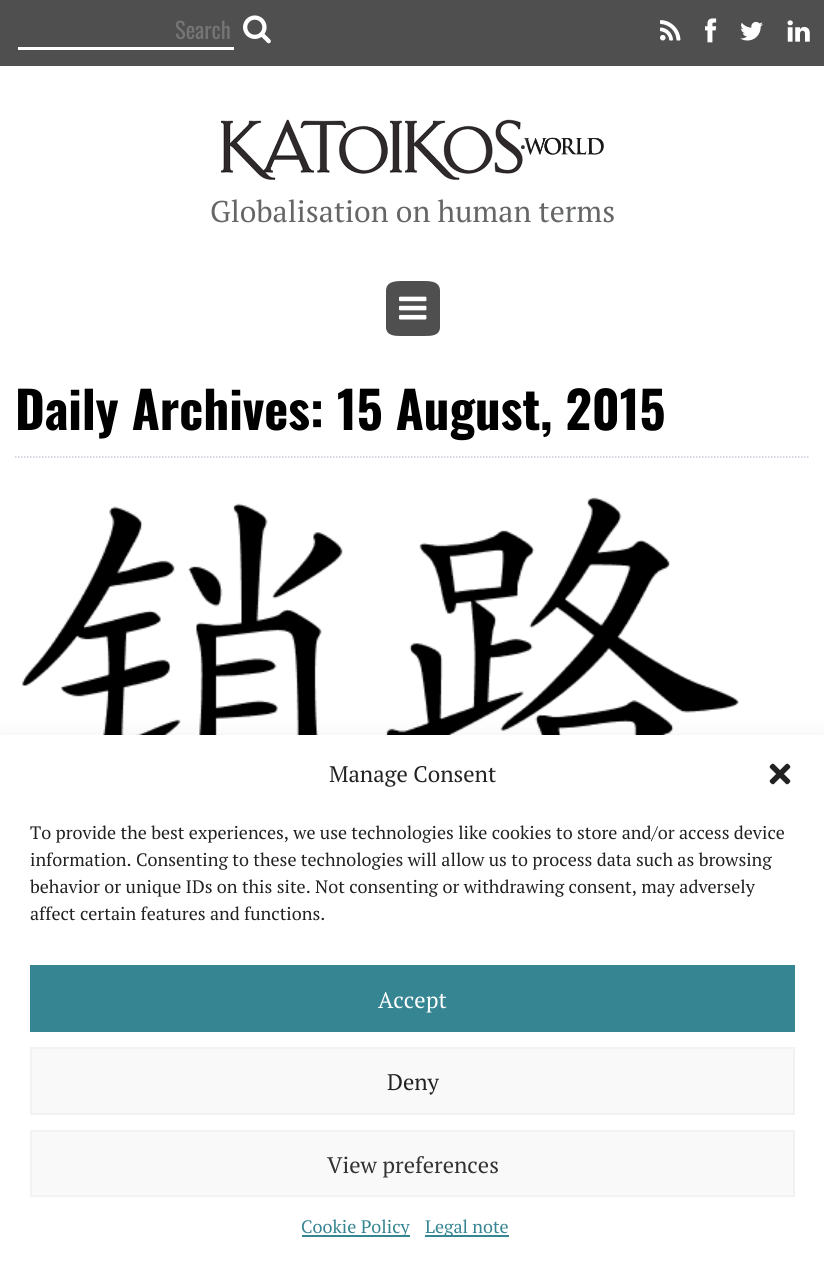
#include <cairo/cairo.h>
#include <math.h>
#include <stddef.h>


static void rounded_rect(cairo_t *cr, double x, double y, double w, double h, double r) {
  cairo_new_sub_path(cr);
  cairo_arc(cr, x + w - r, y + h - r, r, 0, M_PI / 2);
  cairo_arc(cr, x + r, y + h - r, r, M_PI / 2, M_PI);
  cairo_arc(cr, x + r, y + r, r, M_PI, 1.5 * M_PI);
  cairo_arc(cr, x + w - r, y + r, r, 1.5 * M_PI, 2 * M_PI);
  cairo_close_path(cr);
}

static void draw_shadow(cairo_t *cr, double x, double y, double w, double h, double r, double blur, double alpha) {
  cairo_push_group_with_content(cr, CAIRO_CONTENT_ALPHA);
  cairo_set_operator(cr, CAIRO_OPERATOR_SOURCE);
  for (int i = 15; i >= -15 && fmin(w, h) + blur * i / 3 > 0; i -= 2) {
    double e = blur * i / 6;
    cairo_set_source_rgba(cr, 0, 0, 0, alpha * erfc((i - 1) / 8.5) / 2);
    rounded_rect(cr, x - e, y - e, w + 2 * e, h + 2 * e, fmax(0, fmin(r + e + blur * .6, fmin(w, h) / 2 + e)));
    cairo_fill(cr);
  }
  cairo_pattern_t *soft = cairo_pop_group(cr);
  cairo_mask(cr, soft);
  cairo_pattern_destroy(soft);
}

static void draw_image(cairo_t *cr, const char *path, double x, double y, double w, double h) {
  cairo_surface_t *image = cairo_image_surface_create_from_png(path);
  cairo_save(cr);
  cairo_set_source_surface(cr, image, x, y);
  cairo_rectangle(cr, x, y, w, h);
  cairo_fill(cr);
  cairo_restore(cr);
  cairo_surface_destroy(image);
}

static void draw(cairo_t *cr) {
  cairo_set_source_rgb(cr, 1, 1, 1);
  cairo_paint(cr);
  cairo_set_source_rgb(cr, 79 / 255.0, 79 / 255.0, 79 / 255.0);
  cairo_rectangle(cr, 0, 0, 824, 66);
  cairo_fill(cr);
  cairo_set_source_rgb(cr, 1, 1, 1);
  cairo_rectangle(cr, 18, 47, 216, 3);
  cairo_fill(cr);
  draw_image(cr, "images/1.png", 243, 15, 28, 29);
  draw_image(cr, "images/2.png", 660, 20, 21, 21);
  draw_image(cr, "images/3.png", 705, 18, 12, 25);
  draw_image(cr, "images/4.png", 740, 21, 23, 20);
  draw_image(cr, "images/5.png", 787, 20, 23, 22);
  draw_image(cr, "images/6.png", 221, 119, 383, 61);
  cairo_set_source_rgb(cr, 79 / 255.0, 79 / 255.0, 79 / 255.0);
  cairo_new_path(cr);
  cairo_move_to(cr, 440, 291);
  cairo_line_to(cr, 440, 328);
  cairo_curve_to(cr, 439, 336, 431, 336, 424, 336);
  cairo_line_to(cr, 402, 336);
  cairo_curve_to(cr, 395, 336, 387, 336, 386, 328);
  cairo_line_to(cr, 386, 291);
  cairo_curve_to(cr, 386, 282, 394, 281, 402, 281);
  cairo_line_to(cr, 424, 281);
  cairo_curve_to(cr, 432, 281, 440, 282, 440, 291);
  cairo_close_path(cr);
  cairo_fill(cr);
  draw_image(cr, "images/7.png", 399, 296, 28, 24);
  cairo_new_path(cr);
  cairo_move_to(cr, 15, 457);
  cairo_line_to(cr, 810, 457);
  cairo_set_source_rgb(cr, 202 / 255.0, 202 / 255.0, 217 / 255.0);
  cairo_set_line_width(cr, 1.5);
  cairo_set_dash(cr, (double[]){1.5, 1.5}, 2, 0);
  cairo_stroke(cr);
  draw_image(cr, "images/8.png", 22, 497, 717, 238);
  cairo_set_source_rgb(cr, 0, 0, 0);
  draw_shadow(cr, 0, 750, 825, 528, 0, 15, 0.19);
  cairo_set_source_rgb(cr, 1, 1, 1);
  cairo_rectangle(cr, 0, 735, 824, 527);
  cairo_fill(cr);
  draw_image(cr, "images/9.png", 769, 763, 22, 22);
  cairo_set_source_rgb(cr, 54 / 255.0, 133 / 255.0, 146 / 255.0);
  cairo_rectangle(cr, 30, 965, 765, 67);
  cairo_fill(cr);
  cairo_set_source_rgb(cr, 249 / 255.0, 249 / 255.0, 249 / 255.0);
  cairo_rectangle(cr, 31, 1048, 763, 66);
  cairo_fill_preserve(cr);
  cairo_set_source_rgb(cr, 242 / 255.0, 242 / 255.0, 242 / 255.0);
  cairo_set_line_width(cr, 2);
  cairo_set_dash(cr, NULL, 0, 0);
  cairo_stroke(cr);
  cairo_set_source_rgb(cr, 249 / 255.0, 249 / 255.0, 249 / 255.0);
  cairo_rectangle(cr, 31, 1131, 763, 65);
  cairo_fill_preserve(cr);
  cairo_set_source_rgb(cr, 242 / 255.0, 242 / 255.0, 242 / 255.0);
  cairo_stroke(cr);
  cairo_set_source_rgb(cr, 54 / 255.0, 133 / 255.0, 146 / 255.0);
  cairo_rectangle(cr, 302, 1235, 108, 2);
  cairo_fill(cr);
  cairo_rectangle(cr, 425, 1235, 84, 2);
  cairo_fill(cr);
  cairo_select_font_face(cr, "Oswald", CAIRO_FONT_SLANT_NORMAL, CAIRO_FONT_WEIGHT_NORMAL);
  cairo_set_font_size(cr, 22.5);
  cairo_set_source_rgb(cr, 117 / 255.0, 117 / 255.0, 117 / 255.0);
  cairo_move_to(cr, 175, 39);
  cairo_show_text(cr, "Search");
  cairo_select_font_face(cr, "PT Serif", CAIRO_FONT_SLANT_NORMAL, CAIRO_FONT_WEIGHT_NORMAL);
  cairo_set_font_size(cr, 30);
  cairo_set_source_rgb(cr, 101 / 255.0, 102 / 255.0, 103 / 255.0);
  cairo_move_to(cr, 210, 222);
  cairo_show_text(cr, "Globalisation on human terms");
  cairo_select_font_face(cr, "Oswald", CAIRO_FONT_SLANT_NORMAL, CAIRO_FONT_WEIGHT_BOLD);
  cairo_set_font_size(cr, 51);
  cairo_set_source_rgb(cr, 0, 0, 0);
  cairo_move_to(cr, 15, 430);
  cairo_show_text(cr, "Daily Archives: 15 August, 2015");
  cairo_select_font_face(cr, "PT Serif", CAIRO_FONT_SLANT_NORMAL, CAIRO_FONT_WEIGHT_NORMAL);
  cairo_set_font_size(cr, 22.5);
  cairo_set_source_rgb(cr, 34 / 255.0, 34 / 255.0, 34 / 255.0);
  cairo_move_to(cr, 329, 782);
  cairo_show_text(cr, "Manage Consent");
  cairo_set_font_size(cr, 18);
  cairo_move_to(cr, 30, 839);
  cairo_show_text(cr, "To provide the best experiences, we use technologies like cookies to store and/or access device");
  cairo_move_to(cr, 30, 866);
  cairo_show_text(cr, "information. Consenting to these technologies will allow us to process data such as browsing");
  cairo_move_to(cr, 30, 893);
  cairo_show_text(cr, "behavior or unique IDs on this site. Not consenting or withdrawing consent, may adversely");
  cairo_move_to(cr, 30, 920);
  cairo_show_text(cr, "affect certain features and functions.");
  cairo_set_font_size(cr, 22.5);
  cairo_set_source_rgb(cr, 1, 1, 1);
  cairo_move_to(cr, 378, 1008);
  cairo_show_text(cr, "Accept");
  cairo_set_source_rgb(cr, 34 / 255.0, 34 / 255.0, 34 / 255.0);
  cairo_move_to(cr, 387, 1090);
  cairo_show_text(cr, "Deny");
  cairo_set_source_rgb(cr, 51 / 255.0, 51 / 255.0, 51 / 255.0);
  cairo_move_to(cr, 327, 1173);
  cairo_show_text(cr, "View preferences");
  cairo_set_font_size(cr, 18);
  cairo_set_source_rgb(cr, 54 / 255.0, 133 / 255.0, 146 / 255.0);
  cairo_move_to(cr, 301, 1233);
  cairo_show_text(cr, "Cookie Policy");
  cairo_move_to(cr, 425, 1233);
  cairo_show_text(cr, "Legal note");
}

int main(void) {
  cairo_surface_t *surface = cairo_image_surface_create(CAIRO_FORMAT_RGB24, 824, 1262);
  cairo_t *cr = cairo_create(surface);
  cairo_font_options_t *options = cairo_font_options_create();
  cairo_font_options_set_hint_metrics(options, CAIRO_HINT_METRICS_OFF);
  cairo_font_options_set_hint_style(options, CAIRO_HINT_STYLE_NONE);
  cairo_set_font_options(cr, options);
  cairo_set_miter_limit(cr, 4);
  draw(cr);
  cairo_surface_write_to_png(surface, "out.png");
  cairo_font_options_destroy(options);
  cairo_destroy(cr);
  cairo_surface_destroy(surface);
  return 0;
}
